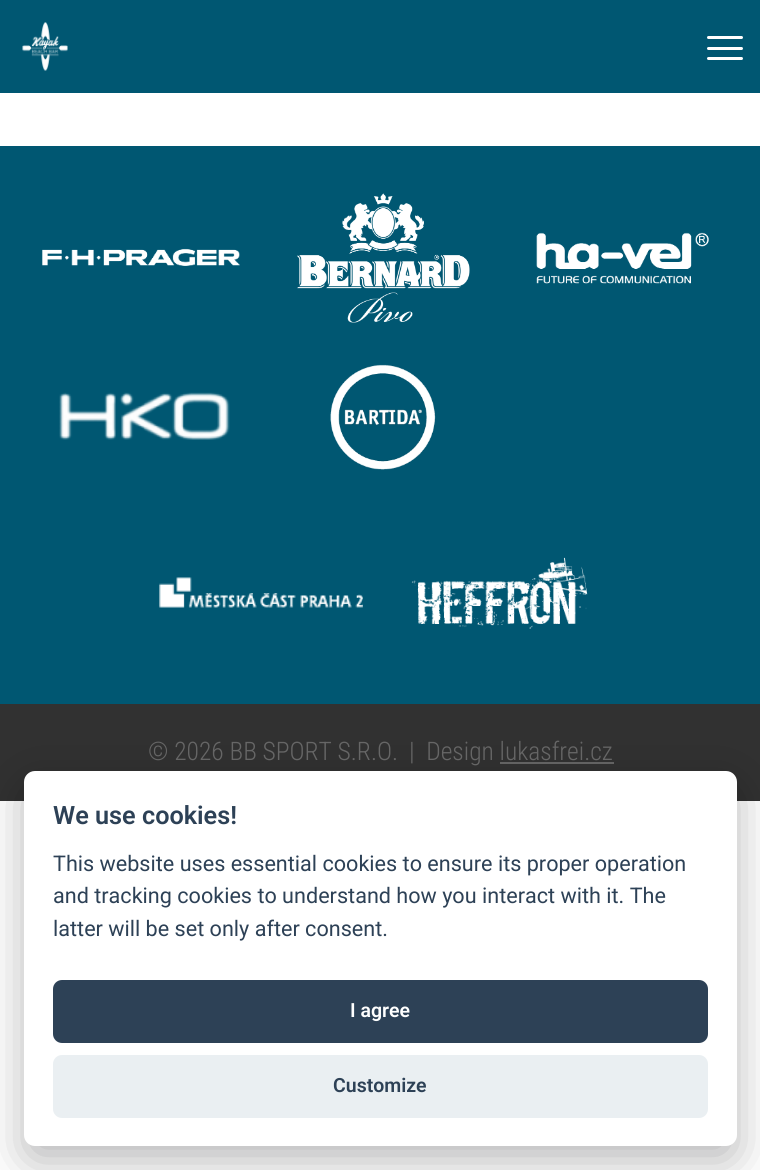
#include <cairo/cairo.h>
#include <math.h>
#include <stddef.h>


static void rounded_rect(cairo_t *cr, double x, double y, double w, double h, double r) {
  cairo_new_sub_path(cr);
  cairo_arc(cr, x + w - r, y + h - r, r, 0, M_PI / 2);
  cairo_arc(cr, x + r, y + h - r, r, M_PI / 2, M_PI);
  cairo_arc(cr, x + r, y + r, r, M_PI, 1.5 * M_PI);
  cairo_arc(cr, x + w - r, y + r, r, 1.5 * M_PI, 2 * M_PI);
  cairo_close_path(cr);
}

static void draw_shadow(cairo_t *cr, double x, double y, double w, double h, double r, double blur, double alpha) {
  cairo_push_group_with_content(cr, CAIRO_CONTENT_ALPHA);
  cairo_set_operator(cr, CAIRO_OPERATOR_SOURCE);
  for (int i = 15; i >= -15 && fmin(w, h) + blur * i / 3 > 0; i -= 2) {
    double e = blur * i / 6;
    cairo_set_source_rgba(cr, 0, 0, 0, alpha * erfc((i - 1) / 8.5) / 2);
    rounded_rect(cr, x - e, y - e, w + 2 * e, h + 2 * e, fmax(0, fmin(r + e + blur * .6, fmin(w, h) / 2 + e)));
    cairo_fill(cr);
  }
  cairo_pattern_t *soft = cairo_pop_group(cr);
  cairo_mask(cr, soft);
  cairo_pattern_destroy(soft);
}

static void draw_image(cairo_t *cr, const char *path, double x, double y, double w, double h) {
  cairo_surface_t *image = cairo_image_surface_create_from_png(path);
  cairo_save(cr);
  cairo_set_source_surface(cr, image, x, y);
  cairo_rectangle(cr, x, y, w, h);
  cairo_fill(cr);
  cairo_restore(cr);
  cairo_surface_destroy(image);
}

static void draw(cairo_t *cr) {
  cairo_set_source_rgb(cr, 1, 1, 1);
  cairo_paint(cr);
  cairo_set_source_rgb(cr, 0, 87 / 255.0, 114 / 255.0);
  cairo_rectangle(cr, 0, 0, 760, 93);
  cairo_fill(cr);
  draw_image(cr, "images/1.png", 22, 22, 46, 49);
  cairo_set_source_rgb(cr, 1, 1, 1);
  rounded_rect(cr, 707, 47, 36, 3, 1.5);
  cairo_fill(cr);
  rounded_rect(cr, 707, 36, 36, 3, 1.5);
  cairo_fill(cr);
  rounded_rect(cr, 707, 57, 36, 3, 1.5);
  cairo_fill(cr);
  cairo_set_source_rgb(cr, 0, 87 / 255.0, 114 / 255.0);
  cairo_rectangle(cr, 0, 146, 760, 558);
  cairo_fill(cr);
  draw_image(cr, "images/2.png", 42, 248, 198, 18);
  draw_image(cr, "images/3.png", 297, 193, 173, 130);
  draw_image(cr, "images/4.png", 536, 232, 173, 52);
  draw_image(cr, "images/5.png", 59, 392, 171, 48);
  draw_image(cr, "images/6.png", 330, 364, 106, 106);
  draw_image(cr, "images/7.png", 159, 577, 204, 31);
  draw_image(cr, "images/8.png", 411, 557, 177, 72);
  cairo_set_source_rgb(cr, 49 / 255.0, 49 / 255.0, 49 / 255.0);
  cairo_rectangle(cr, 0, 704, 760, 97);
  cairo_fill(cr);
  cairo_set_source_rgb(cr, 102 / 255.0, 102 / 255.0, 102 / 255.0);
  cairo_rectangle(cr, 500, 762, 114, 2);
  cairo_fill(cr);
  cairo_set_source_rgb(cr, 2 / 255.0, 2 / 255.0, 3 / 255.0);
  draw_shadow(cr, 24, 786, 713, 375, 11, 22.5, 0.28);
  cairo_set_source_rgb(cr, 1, 1, 1);
  rounded_rect(cr, 24, 771, 713, 375, 11);
  cairo_fill(cr);
  cairo_set_source_rgb(cr, 45 / 255.0, 65 / 255.0, 86 / 255.0);
  rounded_rect(cr, 53, 980, 655, 63, 9);
  cairo_fill(cr);
  cairo_set_source_rgb(cr, 234 / 255.0, 239 / 255.0, 242 / 255.0);
  rounded_rect(cr, 53, 1055, 655, 63, 9);
  cairo_fill(cr);
  cairo_select_font_face(cr, "Roboto Condensed Light", CAIRO_FONT_SLANT_NORMAL, CAIRO_FONT_WEIGHT_NORMAL);
  cairo_set_font_size(cr, 25.5);
  cairo_set_source_rgb(cr, 102 / 255.0, 102 / 255.0, 102 / 255.0);
  cairo_move_to(cr, 148, 760);
  cairo_show_text(cr, "© 2026 BB SPORT S.R.O.");
  cairo_move_to(cr, 409, 760);
  cairo_show_text(cr, "|  Design lukasfrei.cz");
  cairo_select_font_face(cr, "Roboto SemiBold", CAIRO_FONT_SLANT_NORMAL, CAIRO_FONT_WEIGHT_NORMAL);
  cairo_set_font_size(cr, 25.25);
  cairo_set_source_rgb(cr, 45 / 255.0, 65 / 255.0, 86 / 255.0);
  cairo_move_to(cr, 53, 824);
  cairo_show_text(cr, "We use cookies!");
  cairo_select_font_face(cr, "Roboto", CAIRO_FONT_SLANT_NORMAL, CAIRO_FONT_WEIGHT_NORMAL);
  cairo_set_font_size(cr, 21.6);
  cairo_move_to(cr, 53, 871);
  cairo_show_text(cr, "This website uses essential cookies to ensure its proper operation");
  cairo_move_to(cr, 53, 903);
  cairo_show_text(cr, "and tracking cookies to understand how you interact with it. The");
  cairo_move_to(cr, 53, 936);
  cairo_show_text(cr, "latter will be set only after consent.");
  cairo_select_font_face(cr, "Roboto SemiBold", CAIRO_FONT_SLANT_NORMAL, CAIRO_FONT_WEIGHT_NORMAL);
  cairo_set_font_size(cr, 19.5);
  cairo_set_source_rgb(cr, 1, 1, 1);
  cairo_move_to(cr, 350, 1017);
  cairo_show_text(cr, "I agree");
  cairo_set_source_rgb(cr, 45 / 255.0, 65 / 255.0, 86 / 255.0);
  cairo_move_to(cr, 333, 1092);
  cairo_show_text(cr, "Customize");
}

int main(void) {
  cairo_surface_t *surface = cairo_image_surface_create(CAIRO_FORMAT_RGB24, 760, 1170);
  cairo_t *cr = cairo_create(surface);
  cairo_font_options_t *options = cairo_font_options_create();
  cairo_font_options_set_hint_metrics(options, CAIRO_HINT_METRICS_OFF);
  cairo_font_options_set_hint_style(options, CAIRO_HINT_STYLE_NONE);
  cairo_set_font_options(cr, options);
  cairo_set_miter_limit(cr, 4);
  draw(cr);
  cairo_surface_write_to_png(surface, "out.png");
  cairo_font_options_destroy(options);
  cairo_destroy(cr);
  cairo_surface_destroy(surface);
  return 0;
}
